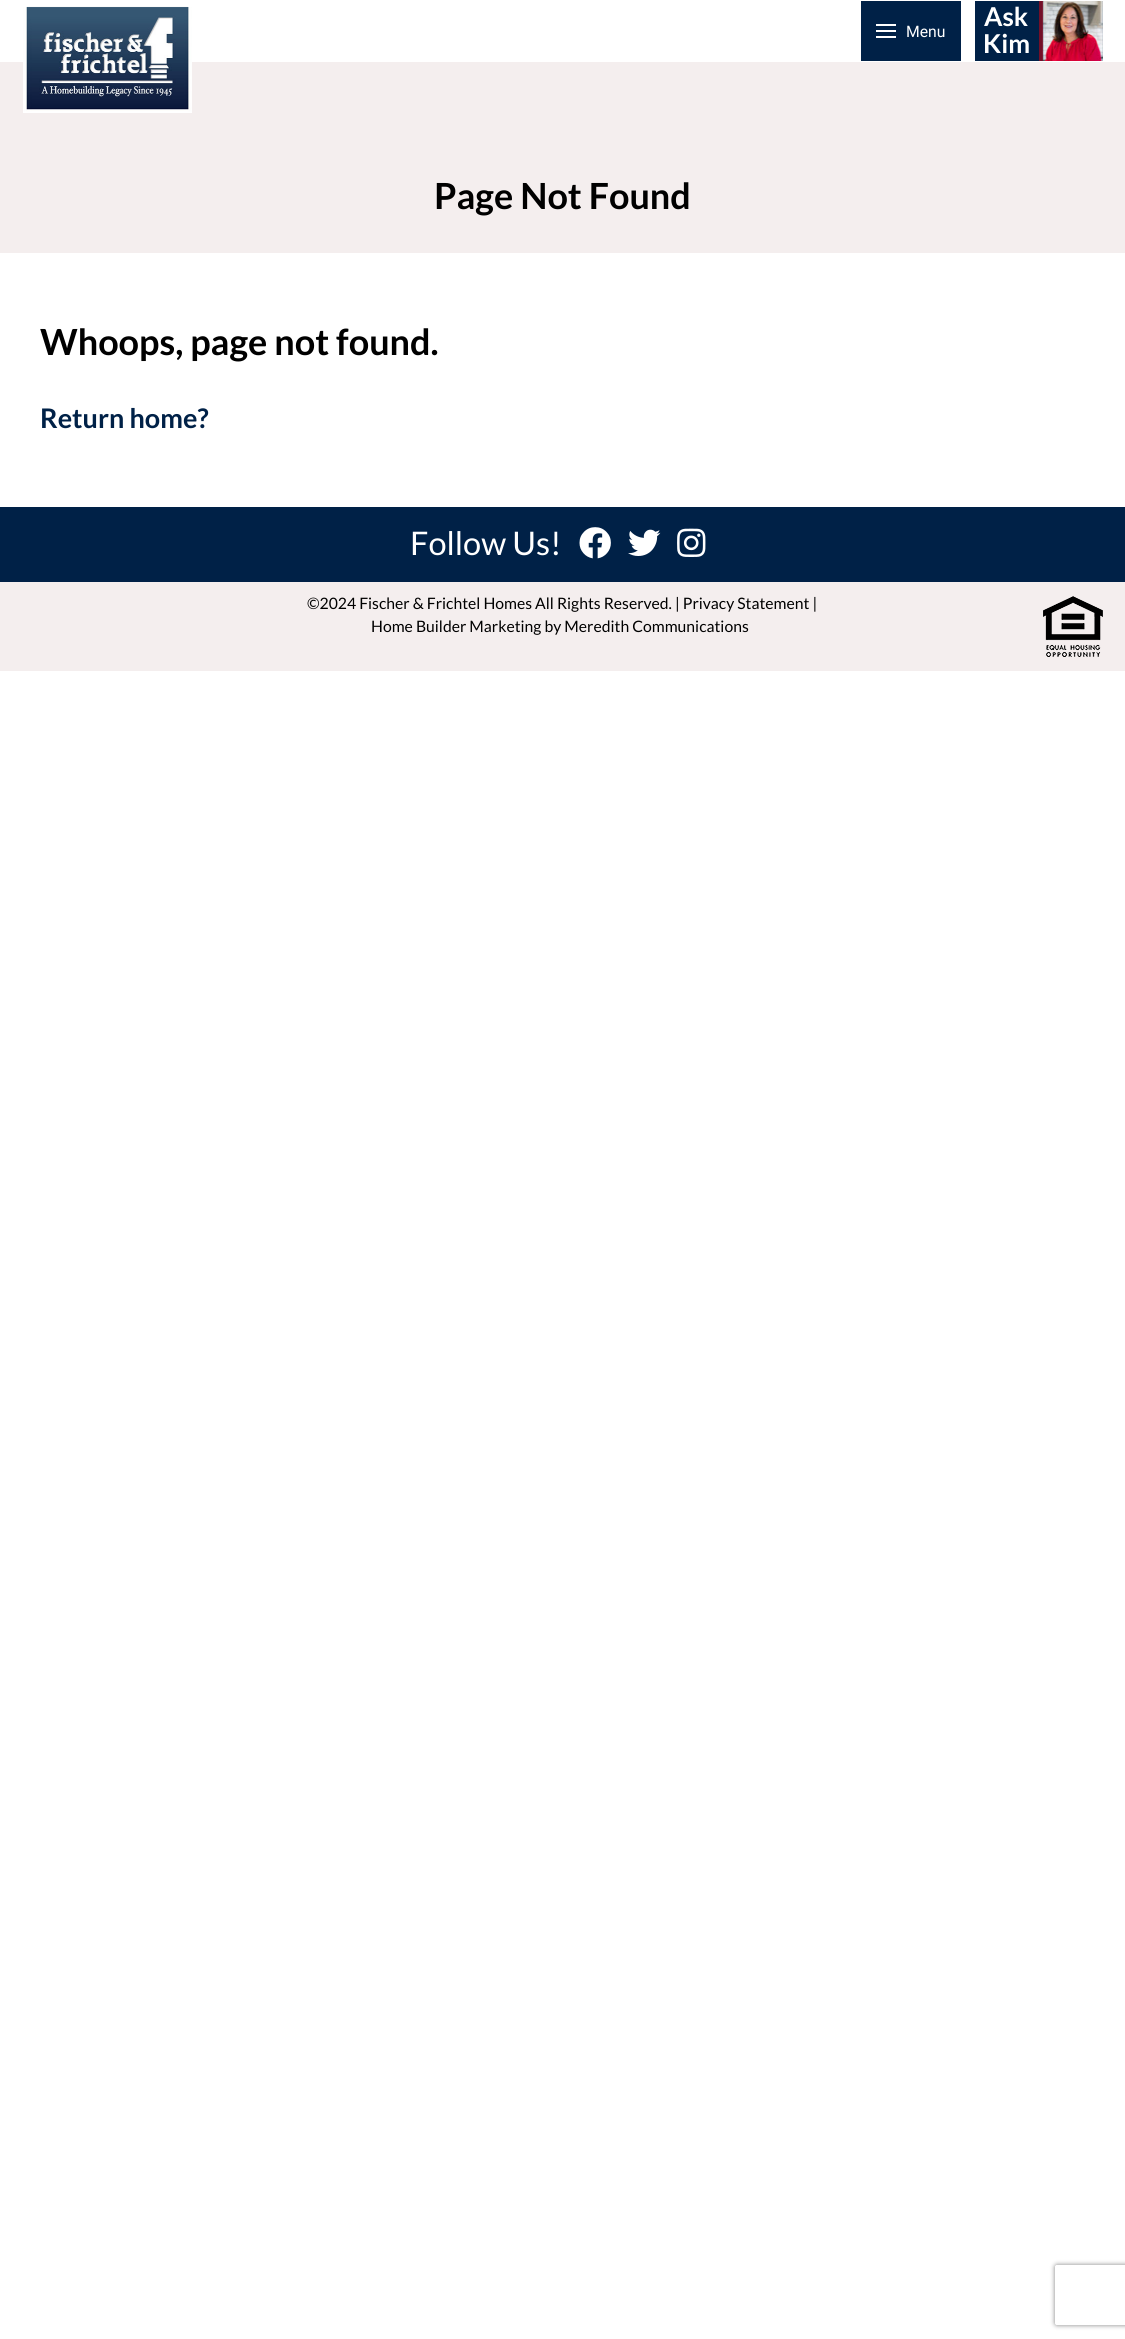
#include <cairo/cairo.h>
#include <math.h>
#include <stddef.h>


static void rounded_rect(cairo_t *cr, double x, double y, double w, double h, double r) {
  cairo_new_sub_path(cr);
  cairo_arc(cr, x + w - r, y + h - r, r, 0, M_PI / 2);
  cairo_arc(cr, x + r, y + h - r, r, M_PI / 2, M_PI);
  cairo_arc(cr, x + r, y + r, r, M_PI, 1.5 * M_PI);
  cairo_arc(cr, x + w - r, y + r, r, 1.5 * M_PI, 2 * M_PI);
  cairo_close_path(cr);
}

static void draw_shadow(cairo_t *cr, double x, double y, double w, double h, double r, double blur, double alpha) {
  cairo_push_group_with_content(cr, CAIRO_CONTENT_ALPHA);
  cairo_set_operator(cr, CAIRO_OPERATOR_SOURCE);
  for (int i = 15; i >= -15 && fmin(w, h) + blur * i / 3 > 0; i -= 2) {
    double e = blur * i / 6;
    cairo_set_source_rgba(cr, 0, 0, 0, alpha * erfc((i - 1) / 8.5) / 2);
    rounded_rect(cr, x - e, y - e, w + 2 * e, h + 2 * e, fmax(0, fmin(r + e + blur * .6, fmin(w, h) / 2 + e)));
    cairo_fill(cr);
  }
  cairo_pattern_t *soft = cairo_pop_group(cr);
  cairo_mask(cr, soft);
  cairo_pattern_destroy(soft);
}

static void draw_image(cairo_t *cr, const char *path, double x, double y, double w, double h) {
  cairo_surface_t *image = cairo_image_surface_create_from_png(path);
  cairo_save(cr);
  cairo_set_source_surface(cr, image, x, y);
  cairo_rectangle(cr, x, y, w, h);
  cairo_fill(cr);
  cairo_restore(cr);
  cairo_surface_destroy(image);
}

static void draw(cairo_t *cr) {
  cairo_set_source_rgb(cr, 1, 1, 1);
  cairo_paint(cr);
  cairo_set_source_rgb(cr, 244 / 255.0, 238 / 255.0, 238 / 255.0);
  cairo_rectangle(cr, 0, 62, 1125, 191);
  cairo_fill(cr);
  draw_image(cr, "images/1.png", 23, 6, 169, 107);
  cairo_set_source_rgb(cr, 0, 33 / 255.0, 71 / 255.0);
  cairo_rectangle(cr, 861, 1, 100, 60);
  cairo_fill(cr);
  cairo_set_source_rgb(cr, 1, 1, 1);
  cairo_rectangle(cr, 876, 24, 20, 2);
  cairo_fill(cr);
  cairo_rectangle(cr, 876, 30, 20, 2);
  cairo_fill(cr);
  cairo_rectangle(cr, 876, 36, 20, 2);
  cairo_fill(cr);
  cairo_set_source_rgb(cr, 0, 33 / 255.0, 71 / 255.0);
  cairo_rectangle(cr, 975, 1, 128, 60);
  cairo_fill(cr);
  cairo_set_source_rgb(cr, 115 / 255.0, 15 / 255.0, 40 / 255.0);
  cairo_rectangle(cr, 1039, 1, 4, 60);
  cairo_fill(cr);
  draw_image(cr, "images/2.png", 1042, 1, 61, 60);
  cairo_set_source_rgb(cr, 0, 33 / 255.0, 71 / 255.0);
  cairo_rectangle(cr, 0, 507, 1125, 75);
  cairo_fill(cr);
  draw_image(cr, "images/3.png", 579, 527, 32, 32);
  draw_image(cr, "images/4.png", 628, 529, 33, 27);
  draw_image(cr, "images/5.png", 677, 528, 29, 29);
  cairo_set_source_rgb(cr, 244 / 255.0, 238 / 255.0, 238 / 255.0);
  cairo_rectangle(cr, 0, 582, 1125, 89);
  cairo_fill(cr);
  draw_image(cr, "images/6.png", 1043, 596, 60, 61);
  cairo_save(cr);
  cairo_set_fill_rule(cr, CAIRO_FILL_RULE_EVEN_ODD);
  cairo_new_path(cr);
  cairo_move_to(cr, 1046, 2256);
  cairo_line_to(cr, 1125, 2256);
  cairo_line_to(cr, 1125, 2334);
  cairo_line_to(cr, 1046, 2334);
  cairo_close_path(cr);
  cairo_move_to(cr, 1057, 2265);
  cairo_line_to(cr, 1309, 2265);
  cairo_curve_to(cr, 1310, 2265, 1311, 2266, 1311, 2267);
  cairo_line_to(cr, 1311, 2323);
  cairo_curve_to(cr, 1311, 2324, 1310, 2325, 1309, 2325);
  cairo_line_to(cr, 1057, 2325);
  cairo_curve_to(cr, 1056, 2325, 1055, 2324, 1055, 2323);
  cairo_line_to(cr, 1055, 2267);
  cairo_curve_to(cr, 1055, 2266, 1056, 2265, 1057, 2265);
  cairo_close_path(cr);
  cairo_clip(cr);
  cairo_set_source_rgb(cr, 128 / 255.0, 128 / 255.0, 128 / 255.0);
  draw_shadow(cr, 1055, 2265, 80, 60, 2, 2.5, 1);
  cairo_restore(cr);
  cairo_select_font_face(cr, "Roboto", CAIRO_FONT_SLANT_NORMAL, CAIRO_FONT_WEIGHT_NORMAL);
  cairo_set_font_size(cr, 15.75);
  cairo_set_source_rgb(cr, 1, 1, 1);
  cairo_move_to(cr, 906, 37);
  cairo_show_text(cr, "Menu");
  cairo_select_font_face(cr, "Lato", CAIRO_FONT_SLANT_NORMAL, CAIRO_FONT_WEIGHT_BOLD);
  cairo_set_font_size(cr, 26);
  cairo_move_to(cr, 984, 26);
  cairo_show_text(cr, "Ask");
  cairo_move_to(cr, 983, 53);
  cairo_show_text(cr, "Kim");
  cairo_set_font_size(cr, 36);
  cairo_set_source_rgb(cr, 0, 0, 0);
  cairo_move_to(cr, 434, 209);
  cairo_show_text(cr, "Page Not Found");
  cairo_move_to(cr, 40, 355);
  cairo_show_text(cr, "Whoops, page not found.");
  cairo_set_font_size(cr, 27);
  cairo_set_source_rgb(cr, 0, 33 / 255.0, 71 / 255.0);
  cairo_move_to(cr, 40, 428);
  cairo_show_text(cr, "Return home?");
  cairo_select_font_face(cr, "Lato", CAIRO_FONT_SLANT_NORMAL, CAIRO_FONT_WEIGHT_NORMAL);
  cairo_set_font_size(cr, 32.5);
  cairo_set_source_rgb(cr, 1, 1, 1);
  cairo_move_to(cr, 410, 555);
  cairo_show_text(cr, "Follow Us!");
  cairo_set_font_size(cr, 15.75);
  cairo_set_source_rgb(cr, 0, 0, 0);
  cairo_move_to(cr, 307, 609);
  cairo_show_text(cr, "©2024 Fischer & Frichtel Homes All Rights Reserved. | Privacy Statement |");
  cairo_move_to(cr, 371, 632);
  cairo_show_text(cr, "Home Builder Marketing by Meredith Communications");
}

int main(void) {
  cairo_surface_t *surface = cairo_image_surface_create(CAIRO_FORMAT_RGB24, 1125, 2339);
  cairo_t *cr = cairo_create(surface);
  cairo_font_options_t *options = cairo_font_options_create();
  cairo_font_options_set_hint_metrics(options, CAIRO_HINT_METRICS_OFF);
  cairo_font_options_set_hint_style(options, CAIRO_HINT_STYLE_NONE);
  cairo_set_font_options(cr, options);
  cairo_set_miter_limit(cr, 4);
  draw(cr);
  cairo_surface_write_to_png(surface, "out.png");
  cairo_font_options_destroy(options);
  cairo_destroy(cr);
  cairo_surface_destroy(surface);
  return 0;
}
